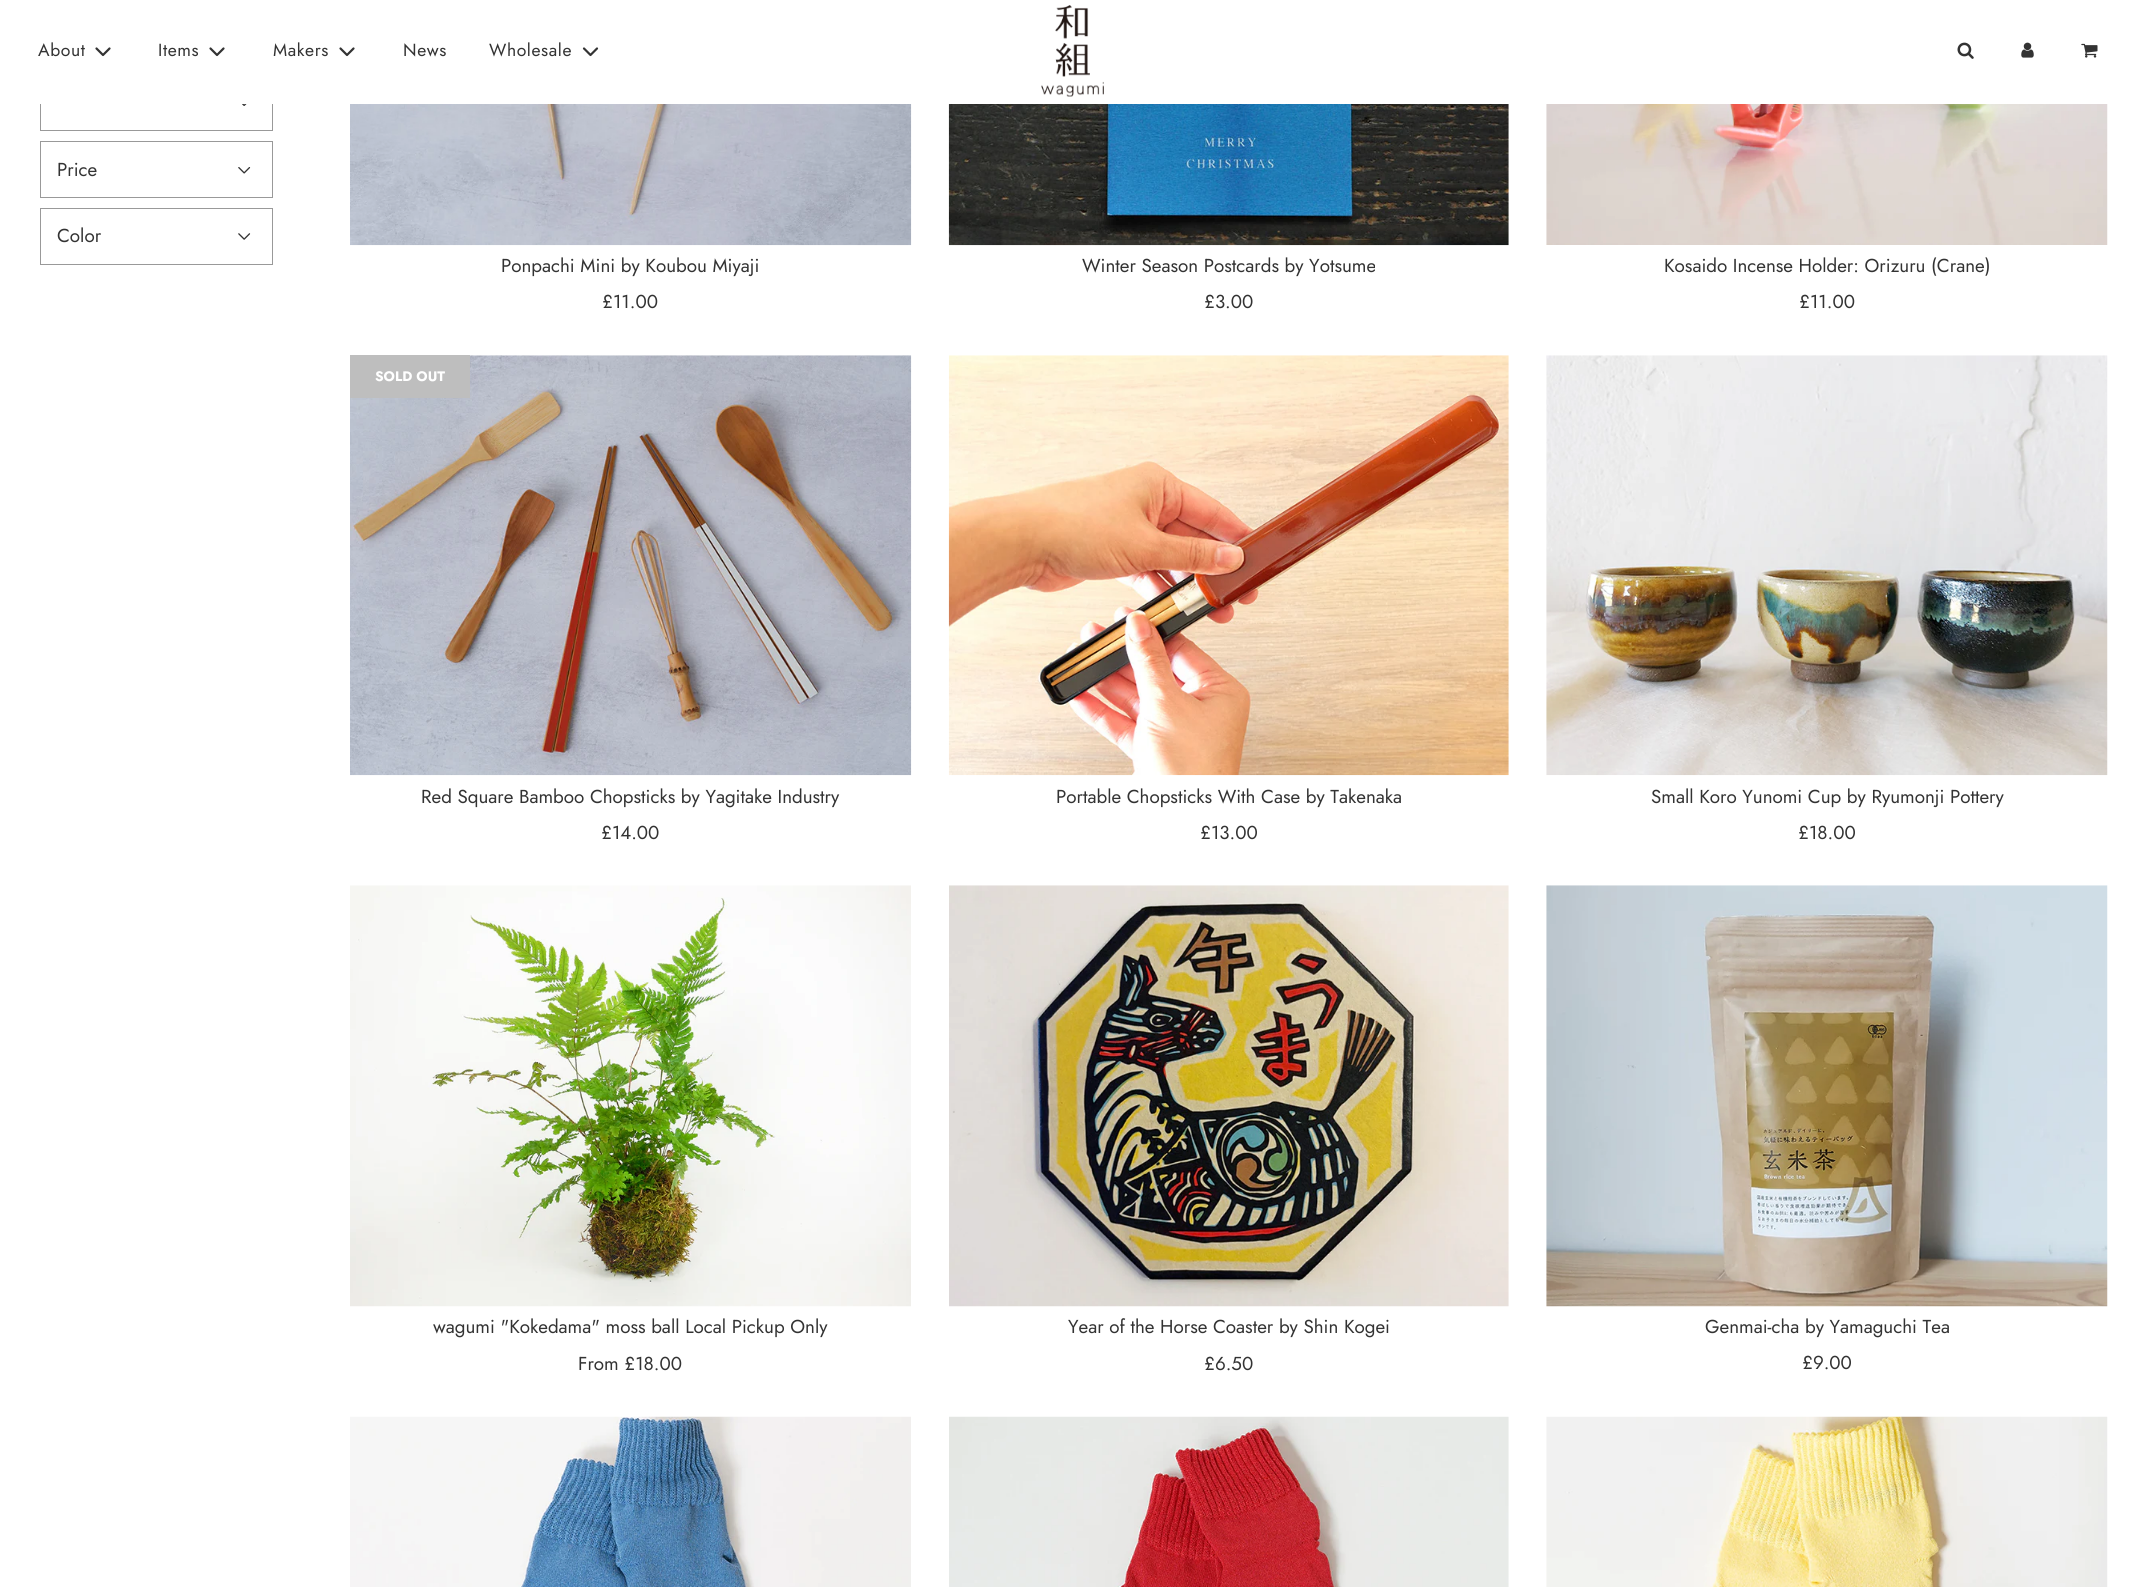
#include <cairo/cairo.h>
#include <math.h>
#include <stddef.h>


static void draw_spaced(cairo_t *cr, double x, double y, const char *s, double letter, double word) {
  cairo_move_to(cr, x, y);
  while (*s) {
    char ch[5] = {0};
    int n = 0;
    do ch[n++] = *s++; while ((*s & 0xC0) == 0x80);
    cairo_show_text(cr, ch);
    cairo_rel_move_to(cr, letter + word * (*ch == ' '), 0);
  }
}

static void draw_image(cairo_t *cr, const char *path, double x, double y, double w, double h) {
  cairo_surface_t *image = cairo_image_surface_create_from_png(path);
  cairo_save(cr);
  cairo_set_source_surface(cr, image, x, y);
  cairo_rectangle(cr, x, y, w, h);
  cairo_fill(cr);
  cairo_restore(cr);
  cairo_surface_destroy(image);
}

static void draw(cairo_t *cr) {
  cairo_set_source_rgb(cr, 1, 1, 1);
  cairo_paint(cr);
  cairo_rectangle(cr, 40.5, 75.5, 232, 55);
  cairo_set_source_rgb(cr, 153 / 255.0, 153 / 255.0, 153 / 255.0);
  cairo_set_line_width(cr, 1);
  cairo_stroke(cr);
  cairo_set_source_rgb(cr, 1, 1, 1);
  cairo_rectangle(cr, 40, 75, 233, 29);
  cairo_fill(cr);
  cairo_new_path(cr);
  cairo_move_to(cr, 96.5, 48.5);
  cairo_line_to(cr, 103, 55);
  cairo_line_to(cr, 109.5, 48.5);
  cairo_set_source_rgb(cr, 51 / 255.0, 51 / 255.0, 51 / 255.0);
  cairo_set_line_width(cr, 2.2);
  cairo_set_line_cap(cr, CAIRO_LINE_CAP_ROUND);
  cairo_set_line_join(cr, CAIRO_LINE_JOIN_ROUND);
  cairo_stroke(cr);
  cairo_new_path(cr);
  cairo_move_to(cr, 210.5, 48.5);
  cairo_line_to(cr, 217, 55);
  cairo_line_to(cr, 223.5, 48.5);
  cairo_stroke(cr);
  cairo_new_path(cr);
  cairo_move_to(cr, 340.5, 48.5);
  cairo_line_to(cr, 347, 55);
  cairo_line_to(cr, 353.5, 48.5);
  cairo_stroke(cr);
  cairo_new_path(cr);
  cairo_move_to(cr, 584, 48.5);
  cairo_line_to(cr, 590.5, 55);
  cairo_line_to(cr, 597, 48.5);
  cairo_stroke(cr);
  draw_image(cr, "images/1.png", 1041, 5, 63, 92);
  draw_image(cr, "images/2.png", 1957, 42, 17, 17);
  draw_image(cr, "images/3.png", 2021, 42, 13, 16);
  draw_image(cr, "images/4.png", 2081, 43, 17, 15);
  draw_image(cr, "images/5.png", 242, 104, 5, 2);
  cairo_rectangle(cr, 40.5, 141.5, 232, 56);
  cairo_set_source_rgb(cr, 153 / 255.0, 153 / 255.0, 153 / 255.0);
  cairo_set_line_width(cr, 1);
  cairo_set_line_cap(cr, CAIRO_LINE_CAP_BUTT);
  cairo_set_line_join(cr, CAIRO_LINE_JOIN_MITER);
  cairo_stroke(cr);
  draw_image(cr, "images/6.png", 238, 167, 13, 7);
  cairo_rectangle(cr, 40.5, 208.5, 232, 56);
  cairo_stroke(cr);
  draw_image(cr, "images/7.png", 238, 233, 13, 7);
  draw_image(cr, "images/8.png", 350, 104, 562, 142);
  draw_image(cr, "images/9.png", 948, 104, 561, 142);
  draw_image(cr, "images/10.png", 1546, 104, 562, 141);
  draw_image(cr, "images/11.png", 350, 355, 562, 421);
  cairo_set_source_rgb(cr, 190 / 255.0, 190 / 255.0, 190 / 255.0);
  cairo_rectangle(cr, 350, 355, 120, 43);
  cairo_fill(cr);
  draw_image(cr, "images/12.png", 948, 355, 561, 421);
  draw_image(cr, "images/13.png", 1546, 355, 562, 421);
  draw_image(cr, "images/14.png", 350, 885, 561, 422);
  draw_image(cr, "images/15.png", 949, 885, 560, 422);
  draw_image(cr, "images/16.png", 1546, 885, 562, 422);
  draw_image(cr, "images/17.png", 350, 1416, 561, 171);
  draw_image(cr, "images/18.png", 949, 1416, 560, 171);
  draw_image(cr, "images/19.png", 1546, 1416, 562, 171);
  cairo_select_font_face(cr, "Jost", CAIRO_FONT_SLANT_NORMAL, CAIRO_FONT_WEIGHT_NORMAL);
  cairo_set_font_size(cr, 17.5);
  cairo_set_source_rgb(cr, 51 / 255.0, 51 / 255.0, 51 / 255.0);
  draw_spaced(cr, 38, 56, "About", 0.6, 0);
  draw_spaced(cr, 158, 56, "Items", 0.6, 0);
  draw_spaced(cr, 273, 56, "Makers", 0.6, 0);
  draw_spaced(cr, 403, 56, "News", 0.6, 0);
  draw_spaced(cr, 489, 56, "Wholesale", 0.6, 0);
  cairo_set_font_size(cr, 18.75);
  cairo_move_to(cr, 57, 176);
  cairo_show_text(cr, "Price");
  cairo_move_to(cr, 57, 242);
  cairo_show_text(cr, "Color");
  cairo_move_to(cr, 501, 272);
  cairo_show_text(cr, "Ponpachi Mini by Koubou Miyaji");
  cairo_move_to(cr, 602, 308);
  cairo_show_text(cr, "£11.00");
  cairo_move_to(cr, 1082, 272);
  cairo_show_text(cr, "Winter Season Postcards by Yotsume");
  cairo_move_to(cr, 1204, 308);
  cairo_show_text(cr, "£3.00");
  cairo_move_to(cr, 1664, 272);
  cairo_show_text(cr, "Kosaido Incense Holder: Orizuru (Crane)");
  cairo_move_to(cr, 1799, 308);
  cairo_show_text(cr, "£11.00");
  cairo_select_font_face(cr, "Jost", CAIRO_FONT_SLANT_NORMAL, CAIRO_FONT_WEIGHT_BOLD);
  cairo_set_font_size(cr, 13.75);
  cairo_set_source_rgb(cr, 1, 1, 1);
  cairo_move_to(cr, 375, 381);
  cairo_show_text(cr, "SOLD OUT");
  cairo_select_font_face(cr, "Jost", CAIRO_FONT_SLANT_NORMAL, CAIRO_FONT_WEIGHT_NORMAL);
  cairo_set_font_size(cr, 18.75);
  cairo_set_source_rgb(cr, 51 / 255.0, 51 / 255.0, 51 / 255.0);
  cairo_move_to(cr, 421, 803);
  cairo_show_text(cr, "Red Square Bamboo Chopsticks by Yagitake Industry");
  cairo_move_to(cr, 601, 839);
  cairo_show_text(cr, "£14.00");
  cairo_move_to(cr, 1056, 803);
  cairo_show_text(cr, "Portable Chopsticks With Case by Takenaka");
  cairo_move_to(cr, 1200, 839);
  cairo_show_text(cr, "£13.00");
  cairo_move_to(cr, 1651, 803);
  cairo_show_text(cr, "Small Koro Yunomi Cup by Ryumonji Pottery");
  cairo_move_to(cr, 1798, 839);
  cairo_show_text(cr, "£18.00");
  cairo_move_to(cr, 433, 1333);
  cairo_show_text(cr, "wagumi \"Kokedama\" moss ball Local Pickup Only");
  cairo_move_to(cr, 578, 1370);
  cairo_show_text(cr, "From £18.00");
  cairo_move_to(cr, 1068, 1333);
  cairo_show_text(cr, "Year of the Horse Coaster by Shin Kogei");
  cairo_move_to(cr, 1204, 1370);
  cairo_show_text(cr, "£6.50");
  cairo_move_to(cr, 1705, 1333);
  cairo_show_text(cr, "Genmai-cha by Yamaguchi Tea");
  cairo_move_to(cr, 1802, 1369);
  cairo_show_text(cr, "£9.00");
}

int main(void) {
  cairo_surface_t *surface = cairo_image_surface_create(CAIRO_FORMAT_RGB24, 2145, 1587);
  cairo_t *cr = cairo_create(surface);
  cairo_font_options_t *options = cairo_font_options_create();
  cairo_font_options_set_hint_metrics(options, CAIRO_HINT_METRICS_OFF);
  cairo_font_options_set_hint_style(options, CAIRO_HINT_STYLE_NONE);
  cairo_set_font_options(cr, options);
  cairo_set_miter_limit(cr, 4);
  draw(cr);
  cairo_surface_write_to_png(surface, "out.png");
  cairo_font_options_destroy(options);
  cairo_destroy(cr);
  cairo_surface_destroy(surface);
  return 0;
}
